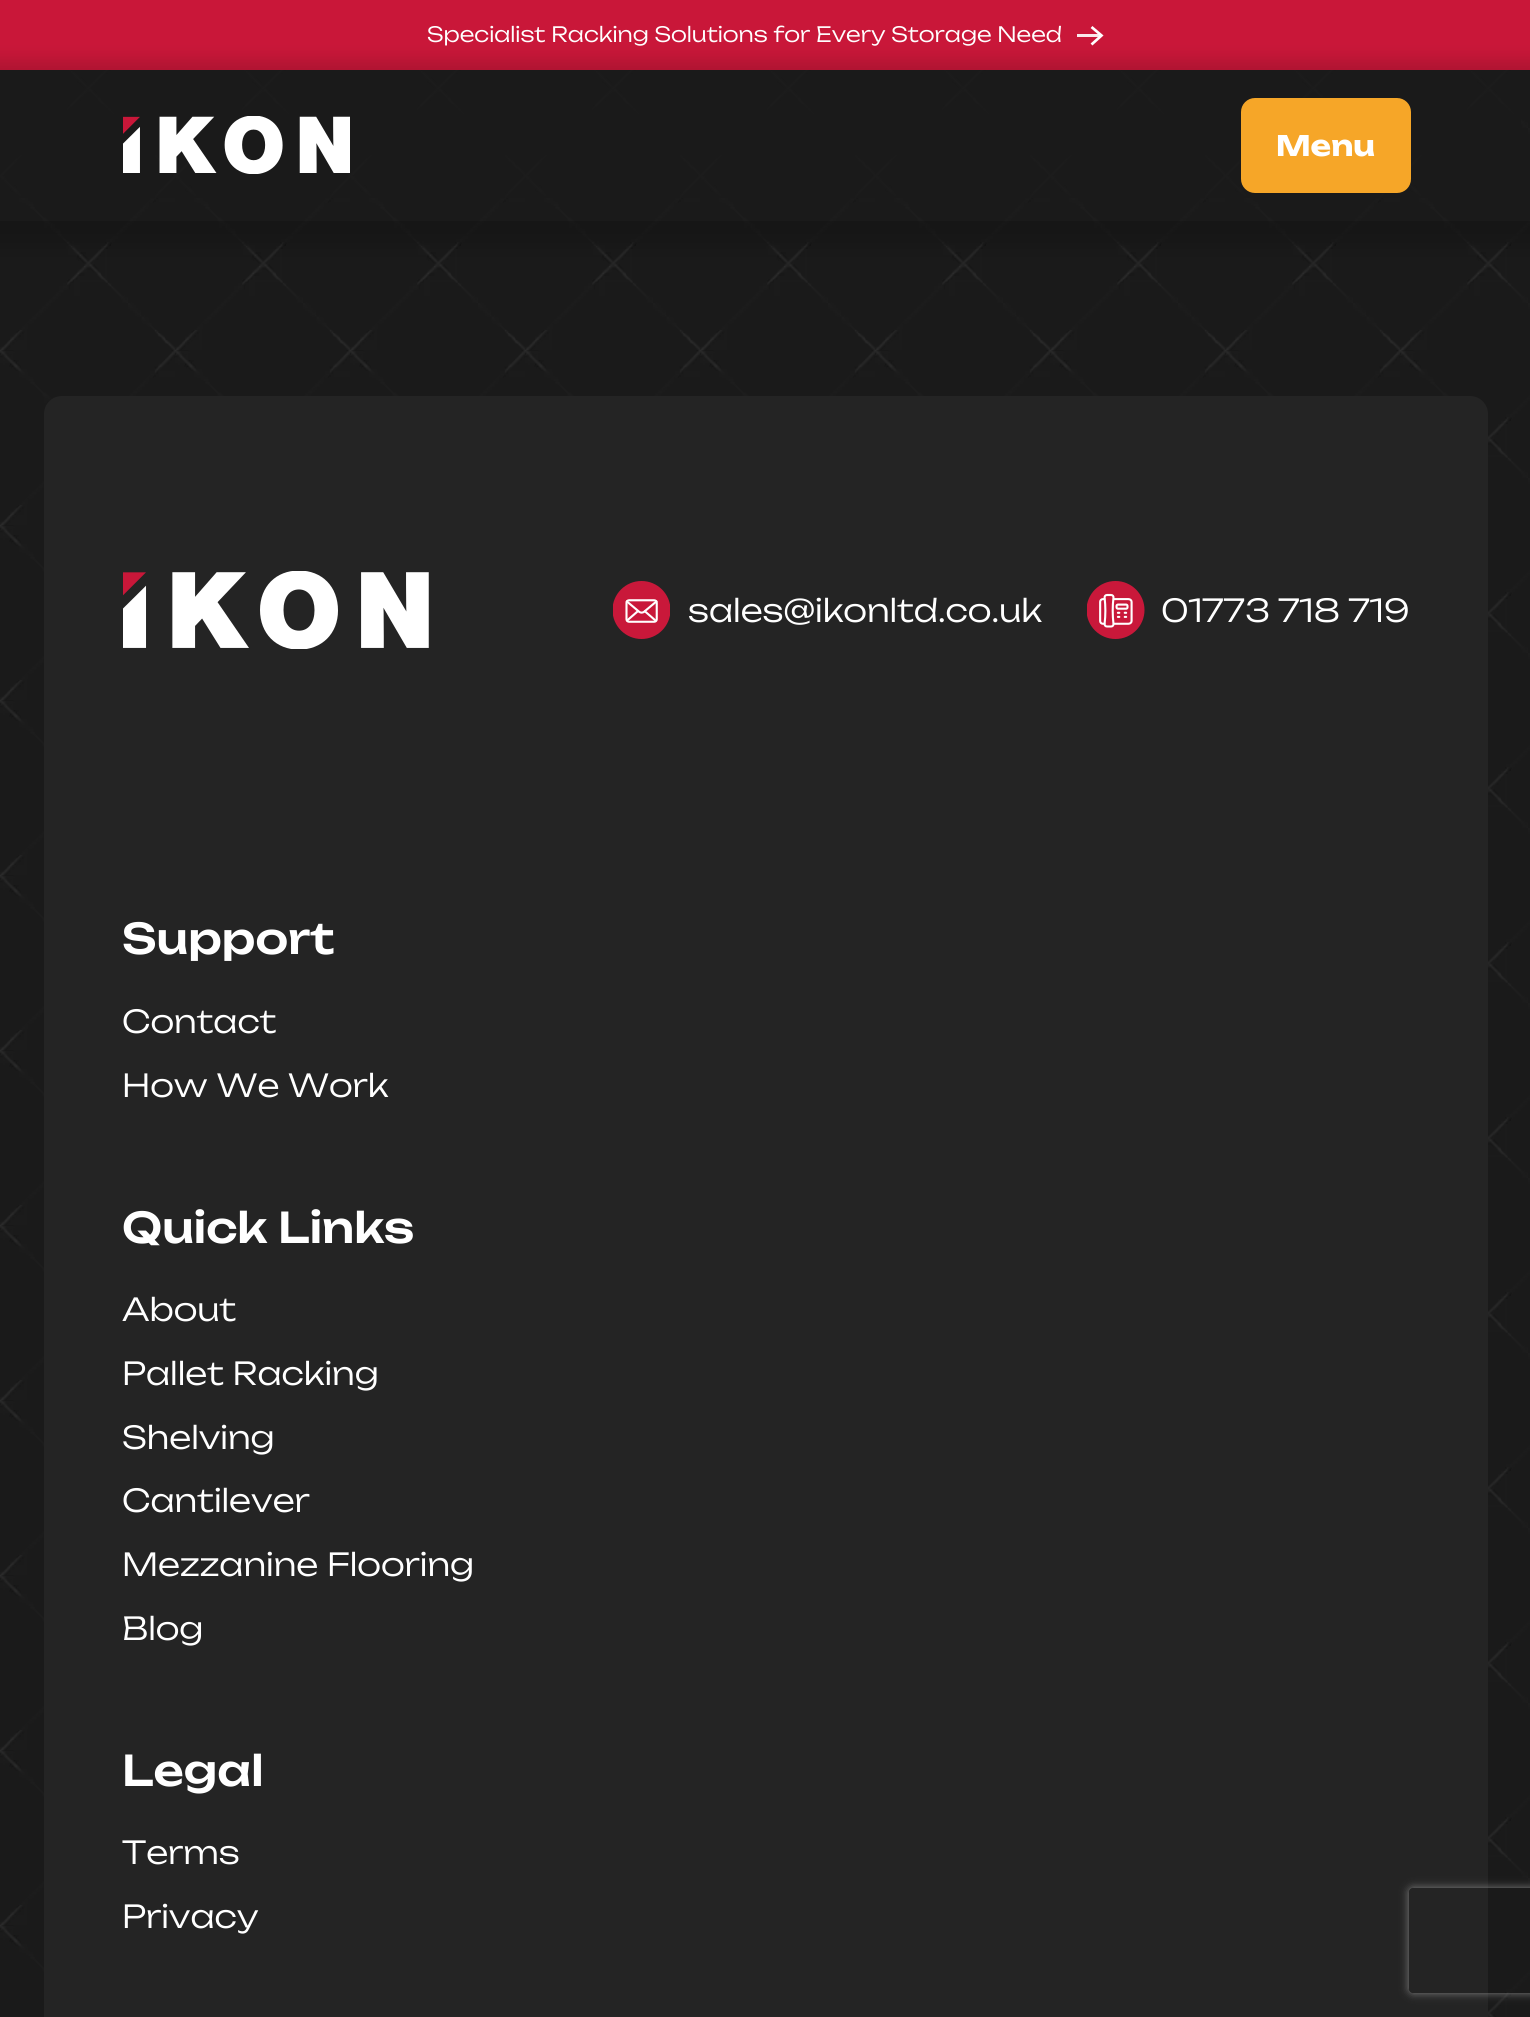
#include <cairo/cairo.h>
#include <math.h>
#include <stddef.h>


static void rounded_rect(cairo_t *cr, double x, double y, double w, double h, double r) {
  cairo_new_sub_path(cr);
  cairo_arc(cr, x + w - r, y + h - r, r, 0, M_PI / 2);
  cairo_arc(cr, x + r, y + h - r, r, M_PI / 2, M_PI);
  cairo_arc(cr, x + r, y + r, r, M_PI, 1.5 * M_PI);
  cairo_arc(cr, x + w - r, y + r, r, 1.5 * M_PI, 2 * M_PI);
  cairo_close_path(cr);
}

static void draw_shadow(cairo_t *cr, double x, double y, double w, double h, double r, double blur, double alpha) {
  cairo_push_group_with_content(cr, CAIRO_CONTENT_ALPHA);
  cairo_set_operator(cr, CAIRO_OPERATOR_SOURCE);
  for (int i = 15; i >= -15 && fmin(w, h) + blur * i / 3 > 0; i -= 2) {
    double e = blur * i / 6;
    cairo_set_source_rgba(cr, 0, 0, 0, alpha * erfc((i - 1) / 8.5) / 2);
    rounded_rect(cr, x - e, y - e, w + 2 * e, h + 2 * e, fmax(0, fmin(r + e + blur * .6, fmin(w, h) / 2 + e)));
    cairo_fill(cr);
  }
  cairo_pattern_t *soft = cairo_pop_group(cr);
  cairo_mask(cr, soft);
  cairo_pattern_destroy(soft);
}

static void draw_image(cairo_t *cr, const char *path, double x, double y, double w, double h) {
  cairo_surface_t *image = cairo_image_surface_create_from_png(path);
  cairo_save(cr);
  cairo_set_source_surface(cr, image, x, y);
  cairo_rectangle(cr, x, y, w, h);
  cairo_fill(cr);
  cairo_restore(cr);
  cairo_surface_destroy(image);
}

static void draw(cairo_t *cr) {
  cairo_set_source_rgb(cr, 1, 1, 1);
  cairo_paint(cr);
  draw_image(cr, "images/1.png", 0, 70, 1530, 1947);
  cairo_set_source_rgb(cr, 201 / 255.0, 23 / 255.0, 57 / 255.0);
  cairo_rectangle(cr, 0, 0, 1530, 70);
  cairo_fill(cr);
  cairo_set_source_rgb(cr, 250 / 255.0, 232 / 255.0, 235 / 255.0);
  cairo_rectangle(cr, 1077, 34, 25, 3);
  cairo_fill(cr);
  cairo_new_path(cr);
  cairo_move_to(cr, 1091.5, 44.5);
  cairo_line_to(cr, 1101.5, 35.5);
  cairo_line_to(cr, 1091.5, 27);
  cairo_set_source_rgb(cr, 1, 1, 1);
  cairo_set_line_width(cr, 2.7);
  cairo_stroke(cr);
  cairo_save(cr);
  cairo_set_fill_rule(cr, CAIRO_FILL_RULE_EVEN_ODD);
  cairo_new_path(cr);
  cairo_move_to(cr, 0, 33);
  cairo_line_to(cr, 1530, 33);
  cairo_line_to(cr, 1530, 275);
  cairo_line_to(cr, 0, 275);
  cairo_close_path(cr);
  cairo_move_to(cr, 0, 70);
  cairo_line_to(cr, 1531, 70);
  cairo_line_to(cr, 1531, 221);
  cairo_line_to(cr, 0, 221);
  cairo_close_path(cr);
  cairo_clip(cr);
  cairo_set_source_rgb(cr, 0, 0, 0);
  draw_shadow(cr, -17, 61, 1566, 186, 0, 9, 0.15);
  cairo_restore(cr);
  cairo_set_source_rgba(cr, 26 / 255.0, 26 / 255.0, 26 / 255.0, 0.85);
  cairo_rectangle(cr, 0, 70, 1521, 128);
  cairo_fill(cr);
  draw_image(cr, "images/2.png", 123, 116, 227, 58);
  cairo_set_source_rgb(cr, 246 / 255.0, 166 / 255.0, 40 / 255.0);
  rounded_rect(cr, 1241, 98, 170, 95, 14);
  cairo_fill(cr);
  cairo_set_source_rgb(cr, 36 / 255.0, 36 / 255.0, 36 / 255.0);
  rounded_rect(cr, 44, 396, 1444, 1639, 18);
  cairo_fill(cr);
  draw_image(cr, "images/3.png", 123, 571, 306, 78);
  draw_image(cr, "images/4.png", 613, 581, 57, 58);
  draw_image(cr, "images/5.png", 1087, 581, 58, 58);
  cairo_save(cr);
  cairo_set_fill_rule(cr, CAIRO_FILL_RULE_EVEN_ODD);
  cairo_new_path(cr);
  cairo_move_to(cr, 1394, 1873);
  cairo_line_to(cr, 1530, 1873);
  cairo_line_to(cr, 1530, 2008);
  cairo_line_to(cr, 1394, 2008);
  cairo_close_path(cr);
  cairo_move_to(cr, 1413, 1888);
  cairo_line_to(cr, 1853, 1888);
  cairo_curve_to(cr, 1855, 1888, 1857, 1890, 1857, 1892);
  cairo_line_to(cr, 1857, 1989);
  cairo_curve_to(cr, 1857, 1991, 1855, 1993, 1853, 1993);
  cairo_line_to(cr, 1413, 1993);
  cairo_curve_to(cr, 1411, 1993, 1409, 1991, 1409, 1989);
  cairo_line_to(cr, 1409, 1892);
  cairo_curve_to(cr, 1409, 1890, 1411, 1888, 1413, 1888);
  cairo_close_path(cr);
  cairo_clip(cr);
  cairo_set_source_rgb(cr, 128 / 255.0, 128 / 255.0, 128 / 255.0);
  draw_shadow(cr, 1409, 1888, 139, 105, 4, 4.5, 1);
  cairo_restore(cr);
  cairo_select_font_face(cr, "Unbounded Light", CAIRO_FONT_SLANT_NORMAL, CAIRO_FONT_WEIGHT_NORMAL);
  cairo_set_font_size(cr, 21);
  cairo_set_source_rgb(cr, 1, 1, 1);
  cairo_move_to(cr, 427, 42);
  cairo_show_text(cr, "Specialist Racking Solutions for Every Storage Need");
  cairo_select_font_face(cr, "Unbounded", CAIRO_FONT_SLANT_NORMAL, CAIRO_FONT_WEIGHT_BOLD);
  cairo_set_font_size(cr, 28);
  cairo_move_to(cr, 1276, 156);
  cairo_show_text(cr, "Menu");
  cairo_select_font_face(cr, "Unbounded Light", CAIRO_FONT_SLANT_NORMAL, CAIRO_FONT_WEIGHT_NORMAL);
  cairo_set_font_size(cr, 31.5);
  cairo_move_to(cr, 688, 622);
  cairo_show_text(cr, "sales@ikonltd.co.uk");
  cairo_move_to(cr, 1161, 622);
  cairo_show_text(cr, "01773 718 719");
  cairo_select_font_face(cr, "Unbounded Medium", CAIRO_FONT_SLANT_NORMAL, CAIRO_FONT_WEIGHT_NORMAL);
  cairo_set_font_size(cr, 42);
  cairo_move_to(cr, 122, 954);
  cairo_show_text(cr, "Support");
  cairo_select_font_face(cr, "Unbounded Light", CAIRO_FONT_SLANT_NORMAL, CAIRO_FONT_WEIGHT_NORMAL);
  cairo_set_font_size(cr, 31.5);
  cairo_move_to(cr, 122, 1033);
  cairo_show_text(cr, "Contact");
  cairo_move_to(cr, 122, 1097);
  cairo_show_text(cr, "How We Work");
  cairo_select_font_face(cr, "Unbounded Medium", CAIRO_FONT_SLANT_NORMAL, CAIRO_FONT_WEIGHT_NORMAL);
  cairo_set_font_size(cr, 42);
  cairo_move_to(cr, 122, 1243);
  cairo_show_text(cr, "Quick Links");
  cairo_select_font_face(cr, "Unbounded Light", CAIRO_FONT_SLANT_NORMAL, CAIRO_FONT_WEIGHT_NORMAL);
  cairo_set_font_size(cr, 31.5);
  cairo_move_to(cr, 122, 1321);
  cairo_show_text(cr, "About");
  cairo_move_to(cr, 122, 1385);
  cairo_show_text(cr, "Pallet Racking");
  cairo_move_to(cr, 122, 1449);
  cairo_show_text(cr, "Shelving");
  cairo_move_to(cr, 122, 1512);
  cairo_show_text(cr, "Cantilever");
  cairo_move_to(cr, 122, 1576);
  cairo_show_text(cr, "Mezzanine Flooring");
  cairo_move_to(cr, 122, 1640);
  cairo_show_text(cr, "Blog");
  cairo_select_font_face(cr, "Unbounded Medium", CAIRO_FONT_SLANT_NORMAL, CAIRO_FONT_WEIGHT_NORMAL);
  cairo_set_font_size(cr, 42);
  cairo_move_to(cr, 122, 1786);
  cairo_show_text(cr, "Legal");
  cairo_select_font_face(cr, "Unbounded Light", CAIRO_FONT_SLANT_NORMAL, CAIRO_FONT_WEIGHT_NORMAL);
  cairo_set_font_size(cr, 31.5);
  cairo_move_to(cr, 122, 1864);
  cairo_show_text(cr, "Terms");
  cairo_move_to(cr, 122, 1928);
  cairo_show_text(cr, "Privacy");
}

int main(void) {
  cairo_surface_t *surface = cairo_image_surface_create(CAIRO_FORMAT_RGB24, 1530, 2017);
  cairo_t *cr = cairo_create(surface);
  cairo_font_options_t *options = cairo_font_options_create();
  cairo_font_options_set_hint_metrics(options, CAIRO_HINT_METRICS_OFF);
  cairo_font_options_set_hint_style(options, CAIRO_HINT_STYLE_NONE);
  cairo_set_font_options(cr, options);
  cairo_set_miter_limit(cr, 4);
  draw(cr);
  cairo_surface_write_to_png(surface, "out.png");
  cairo_font_options_destroy(options);
  cairo_destroy(cr);
  cairo_surface_destroy(surface);
  return 0;
}
